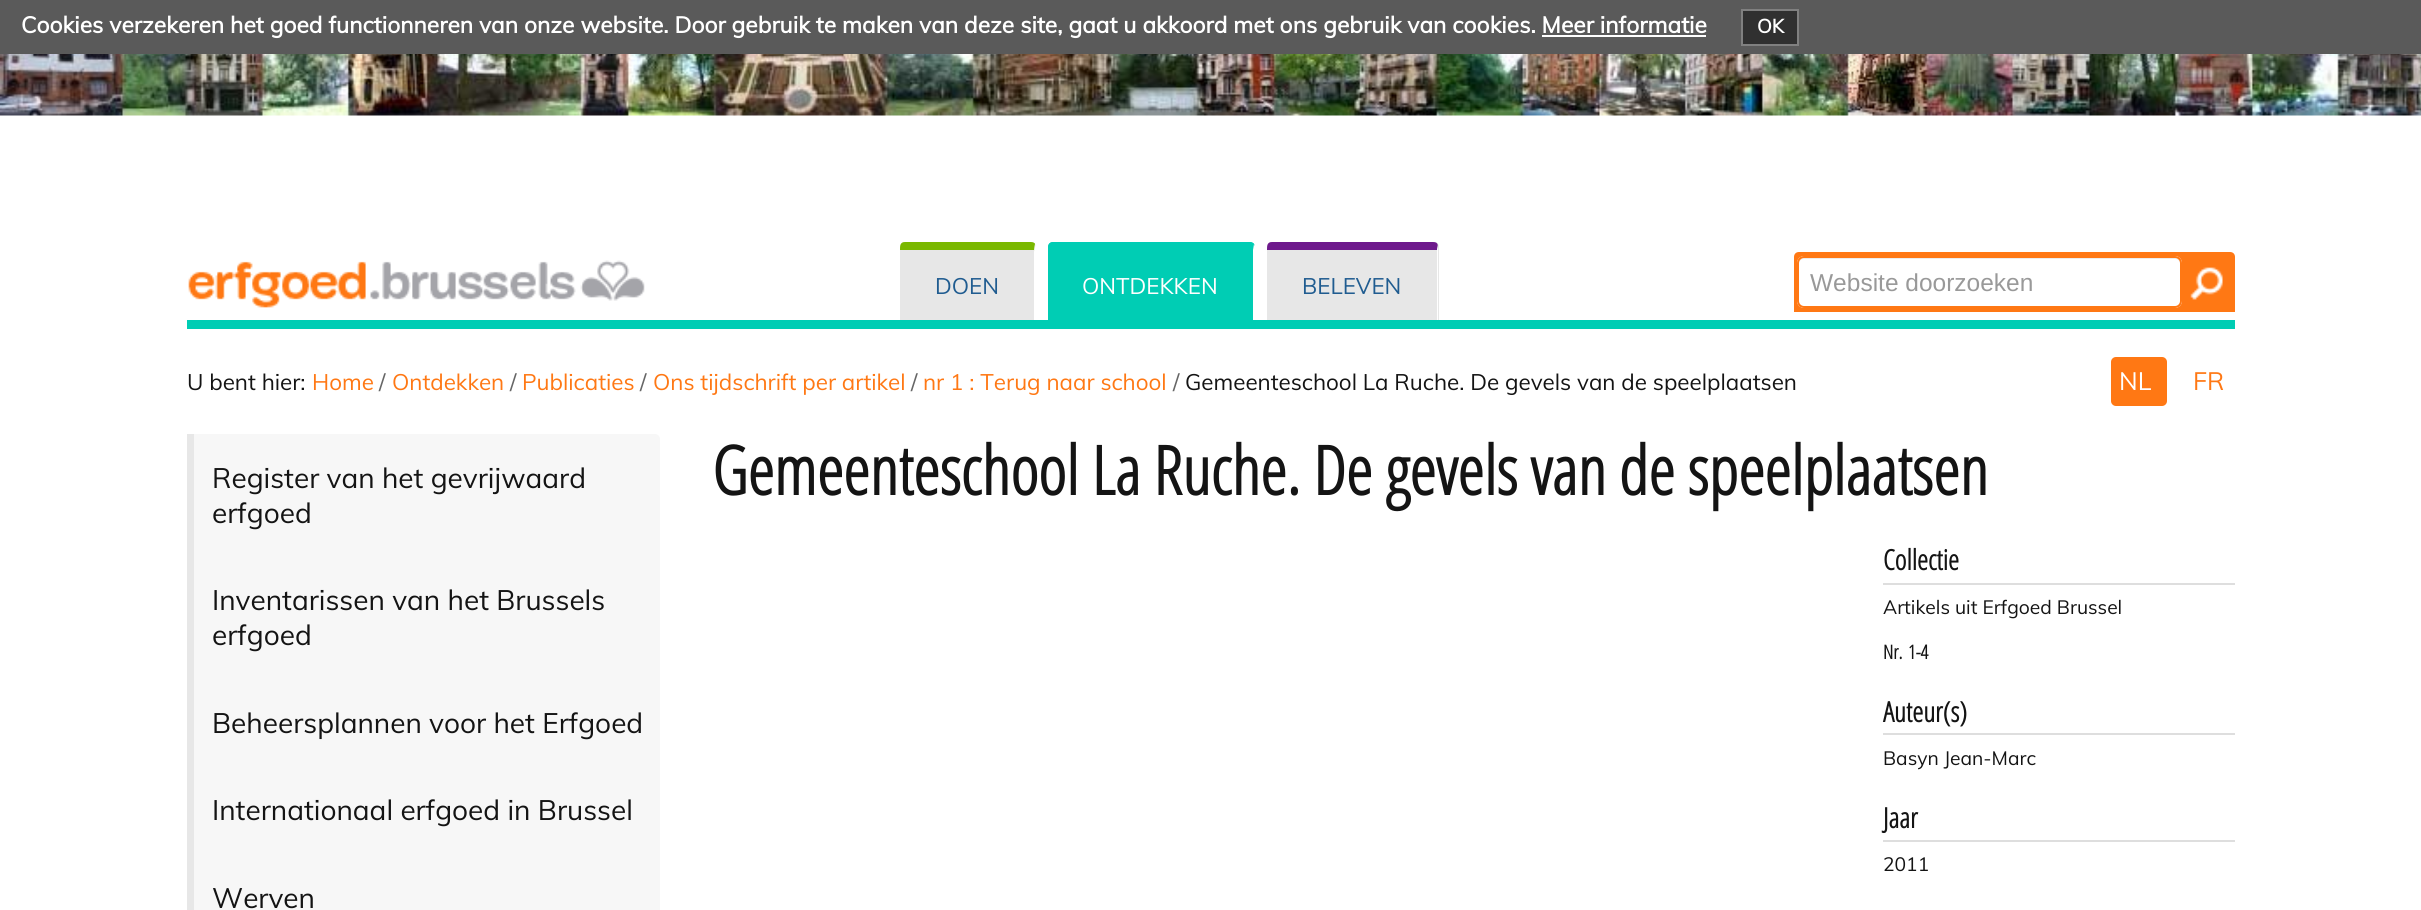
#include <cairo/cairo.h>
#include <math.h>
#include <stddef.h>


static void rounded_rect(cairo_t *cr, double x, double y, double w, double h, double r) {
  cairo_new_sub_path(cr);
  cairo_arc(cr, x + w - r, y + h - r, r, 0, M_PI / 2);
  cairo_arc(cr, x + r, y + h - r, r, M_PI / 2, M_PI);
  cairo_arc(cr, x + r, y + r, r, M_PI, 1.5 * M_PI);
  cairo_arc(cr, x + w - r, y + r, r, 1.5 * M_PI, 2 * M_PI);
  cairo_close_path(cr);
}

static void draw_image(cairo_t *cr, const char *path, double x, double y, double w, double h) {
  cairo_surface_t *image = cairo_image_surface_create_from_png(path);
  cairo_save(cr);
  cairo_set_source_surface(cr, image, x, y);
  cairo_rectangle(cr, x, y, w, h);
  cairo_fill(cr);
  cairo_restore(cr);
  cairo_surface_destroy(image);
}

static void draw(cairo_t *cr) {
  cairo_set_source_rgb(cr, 1, 1, 1);
  cairo_paint(cr);
  draw_image(cr, "images/1.png", 0, 54, 2421, 62);
  cairo_set_source_rgb(cr, 90 / 255.0, 90 / 255.0, 90 / 255.0);
  cairo_rectangle(cr, 0, 0, 2421, 54);
  cairo_fill(cr);
  cairo_set_source_rgb(cr, 48 / 255.0, 48 / 255.0, 48 / 255.0);
  cairo_rectangle(cr, 1742, 10, 56, 35);
  cairo_fill_preserve(cr);
  cairo_set_source_rgb(cr, 128 / 255.0, 128 / 255.0, 128 / 255.0);
  cairo_stroke(cr);
  cairo_set_source_rgb(cr, 1, 1, 1);
  cairo_rectangle(cr, 1542, 35, 164, 2);
  cairo_fill(cr);
  draw_image(cr, "images/2.png", 188, 260, 457, 48);
  cairo_set_source_rgb(cr, 231 / 255.0, 231 / 255.0, 231 / 255.0);
  cairo_new_path(cr);
  cairo_move_to(cr, 905, 242);
  cairo_line_to(cr, 1031, 242);
  cairo_curve_to(cr, 1034, 242, 1036, 244, 1036, 247);
  cairo_line_to(cr, 1036, 320);
  cairo_line_to(cr, 900, 320);
  cairo_line_to(cr, 900, 247);
  cairo_curve_to(cr, 900, 244, 902, 242, 905, 242);
  cairo_close_path(cr);
  cairo_fill(cr);
  cairo_set_source_rgb(cr, 122 / 255.0, 184 / 255.0, 0);
  cairo_new_path(cr);
  cairo_move_to(cr, 905, 242);
  cairo_line_to(cr, 1031, 242);
  cairo_curve_to(cr, 1033, 242, 1035, 243, 1035, 244);
  cairo_line_to(cr, 1034, 252);
  cairo_line_to(cr, 1034, 250);
  cairo_line_to(cr, 900, 250);
  cairo_curve_to(cr, 900, 246, 900, 242, 905, 242);
  cairo_close_path(cr);
  cairo_fill(cr);
  cairo_set_source_rgb(cr, 1, 1, 1);
  cairo_new_path(cr);
  cairo_move_to(cr, 1036, 320);
  cairo_line_to(cr, 1036, 247);
  cairo_line_to(cr, 1035, 244);
  cairo_line_to(cr, 1034, 252);
  cairo_line_to(cr, 1034, 320);
  cairo_close_path(cr);
  cairo_fill(cr);
  cairo_set_source_rgb(cr, 0, 205 / 255.0, 180 / 255.0);
  cairo_new_path(cr);
  cairo_move_to(cr, 1053, 242);
  cairo_line_to(cr, 1250, 242);
  cairo_curve_to(cr, 1253, 242, 1255, 244, 1255, 247);
  cairo_line_to(cr, 1255, 320);
  cairo_line_to(cr, 1048, 320);
  cairo_line_to(cr, 1048, 247);
  cairo_curve_to(cr, 1048, 244, 1050, 242, 1053, 242);
  cairo_close_path(cr);
  cairo_fill(cr);
  cairo_new_path(cr);
  cairo_move_to(cr, 1054, 242);
  cairo_line_to(cr, 1250, 242);
  cairo_curve_to(cr, 1251, 242, 1253, 243, 1254, 244);
  cairo_line_to(cr, 1253, 250);
  cairo_line_to(cr, 1048, 250);
  cairo_curve_to(cr, 1048, 246, 1048, 242, 1054, 242);
  cairo_close_path(cr);
  cairo_fill(cr);
  cairo_set_source_rgb(cr, 1, 1, 1);
  cairo_new_path(cr);
  cairo_move_to(cr, 1255, 246);
  cairo_line_to(cr, 1255, 320);
  cairo_line_to(cr, 1253, 320);
  cairo_line_to(cr, 1253, 250);
  cairo_line_to(cr, 1254, 244);
  cairo_close_path(cr);
  cairo_fill(cr);
  cairo_set_source_rgb(cr, 231 / 255.0, 231 / 255.0, 231 / 255.0);
  cairo_new_path(cr);
  cairo_move_to(cr, 1272, 242);
  cairo_line_to(cr, 1434, 242);
  cairo_curve_to(cr, 1437, 242, 1439, 244, 1439, 247);
  cairo_line_to(cr, 1439, 320);
  cairo_line_to(cr, 1267, 320);
  cairo_line_to(cr, 1267, 247);
  cairo_curve_to(cr, 1267, 244, 1269, 242, 1272, 242);
  cairo_close_path(cr);
  cairo_fill(cr);
  cairo_set_source_rgb(cr, 110 / 255.0, 25 / 255.0, 140 / 255.0);
  cairo_new_path(cr);
  cairo_move_to(cr, 1272, 242);
  cairo_curve_to(cr, 1267, 242, 1267, 246, 1267, 250);
  cairo_line_to(cr, 1437, 250);
  cairo_curve_to(cr, 1438, 246, 1439, 242, 1433, 242);
  cairo_close_path(cr);
  cairo_fill(cr);
  cairo_set_source_rgb(cr, 1, 1, 1);
  cairo_new_path(cr);
  cairo_move_to(cr, 1437, 250);
  cairo_line_to(cr, 1437, 320);
  cairo_line_to(cr, 1438, 320);
  cairo_line_to(cr, 1438, 245);
  cairo_close_path(cr);
  cairo_fill(cr);
  cairo_set_source_rgb(cr, 1, 120 / 255.0, 20 / 255.0);
  cairo_new_path(cr);
  cairo_move_to(cr, 1799, 252);
  cairo_line_to(cr, 2230, 252);
  cairo_curve_to(cr, 2233, 252, 2235, 254, 2235, 257);
  cairo_line_to(cr, 2235, 312);
  cairo_line_to(cr, 1794, 312);
  cairo_line_to(cr, 1794, 257);
  cairo_curve_to(cr, 1794, 254, 1796, 252, 1799, 252);
  cairo_close_path(cr);
  cairo_fill(cr);
  cairo_set_source_rgb(cr, 1, 1, 1);
  rounded_rect(cr, 1797, 256, 385, 52, 7);
  cairo_fill(cr);
  cairo_set_source_rgb(cr, 236 / 255.0, 236 / 255.0, 236 / 255.0);
  cairo_new_path(cr);
  cairo_move_to(cr, 1804, 259);
  cairo_line_to(cr, 2175, 259);
  cairo_curve_to(cr, 2178, 259, 2180, 261, 2180, 264);
  cairo_line_to(cr, 2180, 304);
  cairo_curve_to(cr, 2181, 303, 2181, 302, 2181, 301);
  cairo_line_to(cr, 2181, 262);
  cairo_curve_to(cr, 2181, 259, 2179, 257, 2176, 257);
  cairo_line_to(cr, 1804, 257);
  cairo_curve_to(cr, 1801, 257, 1799, 259, 1799, 262);
  cairo_line_to(cr, 1799, 264);
  cairo_curve_to(cr, 1799, 261, 1801, 259, 1804, 259);
  cairo_close_path(cr);
  cairo_fill(cr);
  rounded_rect(cr, 1798, 257, 383, 50, 6);
  cairo_set_source_rgb(cr, 1, 120 / 255.0, 20 / 255.0);
  cairo_stroke(cr);
  draw_image(cr, "images/3.png", 2190, 267, 33, 33);
  cairo_set_source_rgb(cr, 0, 205 / 255.0, 180 / 255.0);
  cairo_rectangle(cr, 187, 320, 2048, 9);
  cairo_fill(cr);
  cairo_set_source_rgb(cr, 1, 120 / 255.0, 20 / 255.0);
  rounded_rect(cr, 2111, 357, 56, 49, 5);
  cairo_fill(cr);
  cairo_set_source_rgb(cr, 247 / 255.0, 247 / 255.0, 247 / 255.0);
  rounded_rect(cr, 187, 434, 473, 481, 5);
  cairo_fill(cr);
  cairo_set_source_rgb(cr, 231 / 255.0, 231 / 255.0, 231 / 255.0);
  cairo_rectangle(cr, 187, 434, 7, 476);
  cairo_fill(cr);
  cairo_set_source_rgb(cr, 222 / 255.0, 222 / 255.0, 222 / 255.0);
  cairo_rectangle(cr, 1883, 583, 352, 2);
  cairo_fill(cr);
  cairo_rectangle(cr, 1883, 733, 352, 2);
  cairo_fill(cr);
  cairo_rectangle(cr, 1883, 840, 352, 2);
  cairo_fill(cr);
  cairo_select_font_face(cr, "Muli", CAIRO_FONT_SLANT_NORMAL, CAIRO_FONT_WEIGHT_BOLD);
  cairo_set_font_size(cr, 22.75);
  cairo_set_source_rgb(cr, 1, 1, 1);
  cairo_move_to(cr, 21, 33);
  cairo_show_text(cr, "Cookies verzekeren het goed functionneren van onze website. Door gebruik te maken van deze site, gaat u akkoord met ons gebruik van cookies. Meer informatie");
  cairo_set_font_size(cr, 19.25);
  cairo_move_to(cr, 1757, 33);
  cairo_show_text(cr, "OK");
  cairo_select_font_face(cr, "Muli", CAIRO_FONT_SLANT_NORMAL, CAIRO_FONT_WEIGHT_NORMAL);
  cairo_set_font_size(cr, 22.4);
  cairo_set_source_rgb(cr, 32 / 255.0, 92 / 255.0, 144 / 255.0);
  cairo_move_to(cr, 935, 294);
  cairo_show_text(cr, "DOEN");
  cairo_set_source_rgb(cr, 1, 1, 1);
  cairo_move_to(cr, 1082, 294);
  cairo_show_text(cr, "ONTDEKKEN");
  cairo_set_source_rgb(cr, 32 / 255.0, 92 / 255.0, 144 / 255.0);
  cairo_move_to(cr, 1302, 294);
  cairo_show_text(cr, "BELEVEN");
  cairo_select_font_face(cr, "Liberation Sans", CAIRO_FONT_SLANT_NORMAL, CAIRO_FONT_WEIGHT_NORMAL);
  cairo_set_font_size(cr, 24.5);
  cairo_set_source_rgb(cr, 153 / 255.0, 153 / 255.0, 153 / 255.0);
  cairo_move_to(cr, 1810, 291);
  cairo_show_text(cr, "Website doorzoeken");
  cairo_select_font_face(cr, "Muli", CAIRO_FONT_SLANT_NORMAL, CAIRO_FONT_WEIGHT_NORMAL);
  cairo_set_font_size(cr, 22.4);
  cairo_set_source_rgb(cr, 20 / 255.0, 20 / 255.0, 20 / 255.0);
  cairo_move_to(cr, 187, 390);
  cairo_show_text(cr, "U bent hier:");
  cairo_set_source_rgb(cr, 1, 120 / 255.0, 20 / 255.0);
  cairo_move_to(cr, 312, 390);
  cairo_show_text(cr, "Home");
  cairo_set_source_rgb(cr, 102 / 255.0, 102 / 255.0, 102 / 255.0);
  cairo_move_to(cr, 379, 390);
  cairo_show_text(cr, "/");
  cairo_set_source_rgb(cr, 1, 120 / 255.0, 20 / 255.0);
  cairo_move_to(cr, 392, 390);
  cairo_show_text(cr, "Ontdekken");
  cairo_set_source_rgb(cr, 102 / 255.0, 102 / 255.0, 102 / 255.0);
  cairo_move_to(cr, 510, 390);
  cairo_show_text(cr, "/");
  cairo_set_source_rgb(cr, 1, 120 / 255.0, 20 / 255.0);
  cairo_move_to(cr, 522, 390);
  cairo_show_text(cr, "Publicaties");
  cairo_set_source_rgb(cr, 102 / 255.0, 102 / 255.0, 102 / 255.0);
  cairo_move_to(cr, 640, 390);
  cairo_show_text(cr, "/");
  cairo_set_source_rgb(cr, 1, 120 / 255.0, 20 / 255.0);
  cairo_move_to(cr, 653, 390);
  cairo_show_text(cr, "Ons tijdschrift per artikel");
  cairo_set_source_rgb(cr, 102 / 255.0, 102 / 255.0, 102 / 255.0);
  cairo_move_to(cr, 911, 390);
  cairo_show_text(cr, "/");
  cairo_set_source_rgb(cr, 1, 120 / 255.0, 20 / 255.0);
  cairo_move_to(cr, 923, 390);
  cairo_show_text(cr, "nr 1 : Terug naar school");
  cairo_set_source_rgb(cr, 102 / 255.0, 102 / 255.0, 102 / 255.0);
  cairo_move_to(cr, 1173, 390);
  cairo_show_text(cr, "/");
  cairo_set_source_rgb(cr, 20 / 255.0, 20 / 255.0, 20 / 255.0);
  cairo_move_to(cr, 1185, 390);
  cairo_show_text(cr, "Gemeenteschool La Ruche. De gevels van de speelplaatsen");
  cairo_set_font_size(cr, 25);
  cairo_set_source_rgb(cr, 1, 1, 1);
  cairo_move_to(cr, 2119, 390);
  cairo_show_text(cr, "NL");
  cairo_set_source_rgb(cr, 1, 120 / 255.0, 20 / 255.0);
  cairo_move_to(cr, 2193, 390);
  cairo_show_text(cr, "FR");
  cairo_set_font_size(cr, 28);
  cairo_set_source_rgb(cr, 20 / 255.0, 20 / 255.0, 20 / 255.0);
  cairo_move_to(cr, 212, 488);
  cairo_show_text(cr, "Register van het gevrijwaard");
  cairo_move_to(cr, 212, 523);
  cairo_show_text(cr, "erfgoed");
  cairo_move_to(cr, 212, 610);
  cairo_show_text(cr, "Inventarissen van het Brussels");
  cairo_move_to(cr, 212, 645);
  cairo_show_text(cr, "erfgoed");
  cairo_move_to(cr, 212, 733);
  cairo_show_text(cr, "Beheersplannen voor het Erfgoed");
  cairo_move_to(cr, 212, 820);
  cairo_show_text(cr, "Internationaal erfgoed in Brussel");
  cairo_move_to(cr, 212, 908);
  cairo_show_text(cr, "Werven");
  cairo_select_font_face(cr, "Open Sans Condensed", CAIRO_FONT_SLANT_NORMAL, CAIRO_FONT_WEIGHT_BOLD);
  cairo_set_font_size(cr, 67.4);
  cairo_move_to(cr, 712, 495);
  cairo_show_text(cr, "Gemeenteschool La Ruche. De gevels van de speelplaatsen");
  cairo_set_font_size(cr, 28);
  cairo_move_to(cr, 1883, 570);
  cairo_show_text(cr, "Collectie");
  cairo_select_font_face(cr, "Muli", CAIRO_FONT_SLANT_NORMAL, CAIRO_FONT_WEIGHT_NORMAL);
  cairo_set_font_size(cr, 19.25);
  cairo_move_to(cr, 1883, 614);
  cairo_show_text(cr, "Artikels uit Erfgoed Brussel");
  cairo_select_font_face(cr, "Open Sans Condensed", CAIRO_FONT_SLANT_NORMAL, CAIRO_FONT_WEIGHT_BOLD);
  cairo_move_to(cr, 1883, 659);
  cairo_show_text(cr, "Nr.");
  cairo_move_to(cr, 1908, 659);
  cairo_show_text(cr, "1-4");
  cairo_set_font_size(cr, 28);
  cairo_move_to(cr, 1883, 722);
  cairo_show_text(cr, "Auteur(s)");
  cairo_select_font_face(cr, "Muli", CAIRO_FONT_SLANT_NORMAL, CAIRO_FONT_WEIGHT_NORMAL);
  cairo_set_font_size(cr, 19.25);
  cairo_move_to(cr, 1883, 765);
  cairo_show_text(cr, "Basyn Jean-Marc");
  cairo_select_font_face(cr, "Open Sans Condensed", CAIRO_FONT_SLANT_NORMAL, CAIRO_FONT_WEIGHT_BOLD);
  cairo_set_font_size(cr, 28);
  cairo_move_to(cr, 1883, 828);
  cairo_show_text(cr, "Jaar");
  cairo_select_font_face(cr, "Muli", CAIRO_FONT_SLANT_NORMAL, CAIRO_FONT_WEIGHT_NORMAL);
  cairo_set_font_size(cr, 19.25);
  cairo_move_to(cr, 1883, 871);
  cairo_show_text(cr, "2011");
}

int main(void) {
  cairo_surface_t *surface = cairo_image_surface_create(CAIRO_FORMAT_RGB24, 2421, 910);
  cairo_t *cr = cairo_create(surface);
  cairo_font_options_t *options = cairo_font_options_create();
  cairo_font_options_set_hint_metrics(options, CAIRO_HINT_METRICS_OFF);
  cairo_font_options_set_hint_style(options, CAIRO_HINT_STYLE_NONE);
  cairo_set_font_options(cr, options);
  cairo_set_miter_limit(cr, 4);
  draw(cr);
  cairo_surface_write_to_png(surface, "out.png");
  cairo_font_options_destroy(options);
  cairo_destroy(cr);
  cairo_surface_destroy(surface);
  return 0;
}
